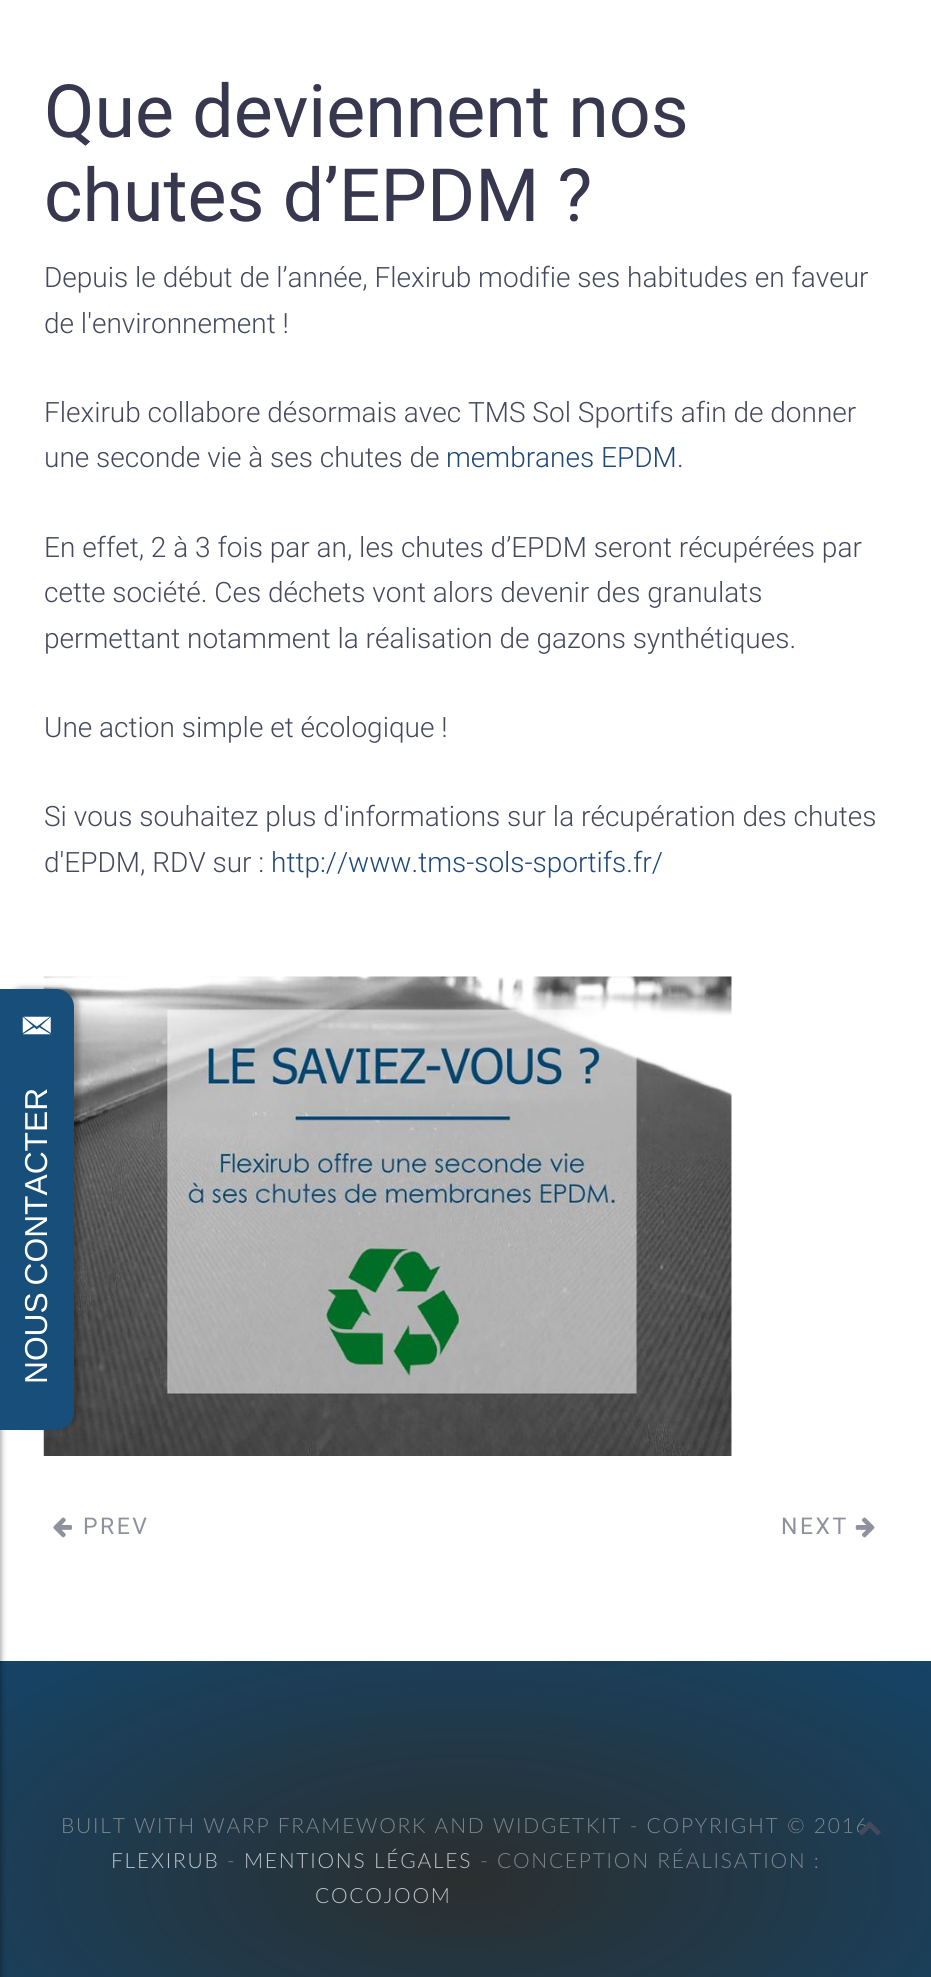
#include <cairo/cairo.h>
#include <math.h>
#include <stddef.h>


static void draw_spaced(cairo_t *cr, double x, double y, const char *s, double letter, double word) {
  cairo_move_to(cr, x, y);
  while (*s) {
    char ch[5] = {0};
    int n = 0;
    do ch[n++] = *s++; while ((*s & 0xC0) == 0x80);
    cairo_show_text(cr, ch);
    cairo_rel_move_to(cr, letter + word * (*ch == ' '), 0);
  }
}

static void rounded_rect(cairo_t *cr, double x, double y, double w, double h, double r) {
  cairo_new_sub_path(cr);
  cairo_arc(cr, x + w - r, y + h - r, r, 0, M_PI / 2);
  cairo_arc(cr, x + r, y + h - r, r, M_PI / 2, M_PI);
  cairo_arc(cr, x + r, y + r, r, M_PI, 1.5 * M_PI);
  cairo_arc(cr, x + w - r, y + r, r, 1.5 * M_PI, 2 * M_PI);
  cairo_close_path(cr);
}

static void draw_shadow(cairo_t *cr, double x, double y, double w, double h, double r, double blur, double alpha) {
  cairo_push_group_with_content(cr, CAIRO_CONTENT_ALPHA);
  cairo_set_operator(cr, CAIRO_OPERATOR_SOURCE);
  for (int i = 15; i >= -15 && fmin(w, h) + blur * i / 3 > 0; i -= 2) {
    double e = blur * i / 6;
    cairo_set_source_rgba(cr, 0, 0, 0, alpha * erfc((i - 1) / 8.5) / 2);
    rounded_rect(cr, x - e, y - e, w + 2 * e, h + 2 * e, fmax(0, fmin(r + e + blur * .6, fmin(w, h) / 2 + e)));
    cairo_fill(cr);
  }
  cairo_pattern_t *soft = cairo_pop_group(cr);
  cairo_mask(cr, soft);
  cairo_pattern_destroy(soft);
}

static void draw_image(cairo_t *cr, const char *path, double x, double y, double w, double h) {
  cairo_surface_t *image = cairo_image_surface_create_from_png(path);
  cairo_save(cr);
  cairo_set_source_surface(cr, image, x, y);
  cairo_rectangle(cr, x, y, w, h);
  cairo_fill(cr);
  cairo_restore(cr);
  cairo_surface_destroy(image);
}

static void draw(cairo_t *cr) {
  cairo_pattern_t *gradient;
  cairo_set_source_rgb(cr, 1, 1, 1);
  cairo_paint(cr);
  gradient = cairo_pattern_create_radial(0, 0, 0, 0, 0, 1);
  cairo_pattern_set_matrix(gradient, &(cairo_matrix_t){1.0 / 790, 0, 0, 1.0 / 373, -1.0 * 466 / 790, -1.0 * 1880 / 373});
  cairo_pattern_add_color_stop_rgba(gradient, 0, 43 / 255.0, 47 / 255.0, 47 / 255.0, 1);
  cairo_pattern_add_color_stop_rgba(gradient, 1, 17 / 255.0, 72 / 255.0, 114 / 255.0, 1);
  cairo_set_source(cr, gradient);
  cairo_pattern_destroy(gradient);
  cairo_rectangle(cr, 0, 1661, 931, 316);
  cairo_fill(cr);
  cairo_set_source_rgb(cr, 0, 0, 0);
  draw_shadow(cr, -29, 989, 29, 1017, 18, 3.5, 0.5);
  draw_image(cr, "images/2.png", 43, 976, 689, 480);
  draw_shadow(cr, 5, 987, 74, 441, 18, 2.5, 0.25);
  cairo_set_source_rgb(cr, 23 / 255.0, 78 / 255.0, 122 / 255.0);
  cairo_new_path(cr);
  cairo_move_to(cr, 1, 990);
  cairo_line_to(cr, 56, 990);
  cairo_curve_to(cr, 65.5, 990, 73, 997.5, 73, 1007);
  cairo_line_to(cr, 73, 1412);
  cairo_curve_to(cr, 73, 1421.5, 65.5, 1429, 56, 1429);
  cairo_line_to(cr, 1, 1429);
  cairo_close_path(cr);
  cairo_fill_preserve(cr);
  cairo_stroke(cr);
  draw_image(cr, "images/1.png", 22, 1016, 29, 19);
  draw_image(cr, "images/3.png", 53, 1517, 19, 21);
  draw_image(cr, "images/4.png", 855, 1517, 20, 21);
  cairo_select_font_face(cr, "Liberation Sans", CAIRO_FONT_SLANT_NORMAL, CAIRO_FONT_WEIGHT_NORMAL);
  cairo_set_font_size(cr, 31.75);
  cairo_set_source_rgb(cr, 1, 1, 1);
  cairo_save(cr);
  cairo_translate(cr, 47, 1384);
  cairo_rotate(cr, -90 * M_PI / 180);
  draw_spaced(cr, 0, 0, "NOUS CONTACTER", 0, -2);
  cairo_restore(cr);
  cairo_select_font_face(cr, "Roboto", CAIRO_FONT_SLANT_NORMAL, CAIRO_FONT_WEIGHT_NORMAL);
  cairo_set_font_size(cr, 73.5);
  cairo_set_source_rgb(cr, 55 / 255.0, 55 / 255.0, 79 / 255.0);
  cairo_move_to(cr, 44, 137);
  cairo_show_text(cr, "Que deviennent nos");
  cairo_move_to(cr, 44, 221);
  cairo_show_text(cr, "chutes d’EPDM ?");
  cairo_select_font_face(cr, "Roboto Light", CAIRO_FONT_SLANT_NORMAL, CAIRO_FONT_WEIGHT_NORMAL);
  cairo_set_font_size(cr, 28);
  cairo_set_source_rgb(cr, 69 / 255.0, 73 / 255.0, 94 / 255.0);
  cairo_move_to(cr, 44, 287);
  cairo_show_text(cr, "Depuis le début de l’année, Flexirub modifie ses habitudes en faveur");
  cairo_move_to(cr, 44, 333);
  cairo_show_text(cr, "de l'environnement !");
  cairo_move_to(cr, 44, 422);
  cairo_show_text(cr, "Flexirub collabore désormais avec TMS Sol Sportifs afin de donner");
  cairo_move_to(cr, 44, 467);
  cairo_show_text(cr, "une seconde vie à ses chutes de");
  cairo_set_source_rgb(cr, 30 / 255.0, 72 / 255.0, 121 / 255.0);
  cairo_move_to(cr, 446, 467);
  cairo_show_text(cr, "membranes EPDM");
  cairo_set_source_rgb(cr, 69 / 255.0, 73 / 255.0, 94 / 255.0);
  cairo_move_to(cr, 677, 467);
  cairo_show_text(cr, ".");
  cairo_move_to(cr, 44, 557);
  cairo_show_text(cr, "En effet, 2 à 3 fois par an, les chutes d’EPDM seront récupérées par");
  cairo_move_to(cr, 44, 602);
  cairo_show_text(cr, "cette société. Ces déchets vont alors devenir des granulats");
  cairo_move_to(cr, 44, 648);
  cairo_show_text(cr, "permettant notamment la réalisation de gazons synthétiques.");
  cairo_move_to(cr, 44, 737);
  cairo_show_text(cr, "Une action simple et écologique !");
  cairo_move_to(cr, 44, 826);
  cairo_show_text(cr, "Si vous souhaitez plus d'informations sur la récupération des chutes");
  cairo_move_to(cr, 44, 872);
  cairo_show_text(cr, "d'EPDM, RDV sur :");
  cairo_set_source_rgb(cr, 30 / 255.0, 72 / 255.0, 121 / 255.0);
  cairo_move_to(cr, 271, 872);
  cairo_show_text(cr, "http://www.tms-sols-sportifs.fr/");
  cairo_select_font_face(cr, "Roboto", CAIRO_FONT_SLANT_NORMAL, CAIRO_FONT_WEIGHT_NORMAL);
  cairo_set_font_size(cr, 23);
  cairo_set_source_rgb(cr, 143 / 255.0, 146 / 255.0, 158 / 255.0);
  draw_spaced(cr, 83, 1534, "PREV", 2.5, 0);
  draw_spaced(cr, 781, 1534, "NEXT", 2.5, 0);
  cairo_select_font_face(cr, "Lato Light", CAIRO_FONT_SLANT_NORMAL, CAIRO_FONT_WEIGHT_NORMAL);
  cairo_set_font_size(cr, 21);
  cairo_set_source_rgb(cr, 123 / 255.0, 135 / 255.0, 142 / 255.0);
  draw_spaced(cr, 61, 1833, "BUILT WITH WARP FRAMEWORK AND WIDGETKIT - COPYRIGHT © 2016", 1.75, 0);
  cairo_set_source_rgb(cr, 188 / 255.0, 195 / 255.0, 200 / 255.0);
  draw_spaced(cr, 111, 1868, "FLEXIRUB", 1.75, 0);
  cairo_set_source_rgb(cr, 123 / 255.0, 135 / 255.0, 142 / 255.0);
  draw_spaced(cr, 227, 1868, "-", 1.75, 0);
  cairo_set_source_rgb(cr, 188 / 255.0, 195 / 255.0, 200 / 255.0);
  draw_spaced(cr, 244, 1868, "MENTIONS LÉGALES", 1.75, 0);
  cairo_set_source_rgb(cr, 123 / 255.0, 135 / 255.0, 142 / 255.0);
  draw_spaced(cr, 480, 1868, "- CONCEPTION RÉALISATION :", 1.75, 0);
  cairo_set_source_rgb(cr, 188 / 255.0, 195 / 255.0, 200 / 255.0);
  draw_spaced(cr, 315, 1903, "COCOJOOM", 1.75, 0);
  draw_image(cr, "images/5.png", 858, 1821, 23, 15);
}

int main(void) {
  cairo_surface_t *surface = cairo_image_surface_create(CAIRO_FORMAT_RGB24, 931, 1977);
  cairo_t *cr = cairo_create(surface);
  cairo_font_options_t *options = cairo_font_options_create();
  cairo_font_options_set_hint_metrics(options, CAIRO_HINT_METRICS_OFF);
  cairo_font_options_set_hint_style(options, CAIRO_HINT_STYLE_NONE);
  cairo_set_font_options(cr, options);
  cairo_set_miter_limit(cr, 4);
  draw(cr);
  cairo_surface_write_to_png(surface, "out.png");
  cairo_font_options_destroy(options);
  cairo_destroy(cr);
  cairo_surface_destroy(surface);
  return 0;
}
